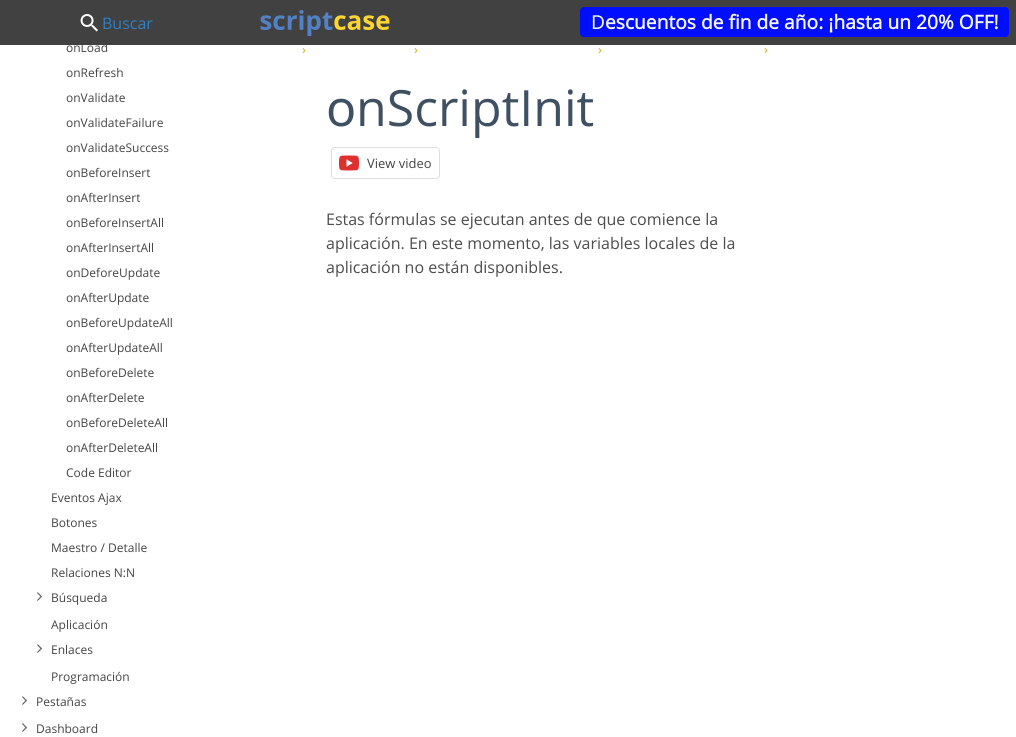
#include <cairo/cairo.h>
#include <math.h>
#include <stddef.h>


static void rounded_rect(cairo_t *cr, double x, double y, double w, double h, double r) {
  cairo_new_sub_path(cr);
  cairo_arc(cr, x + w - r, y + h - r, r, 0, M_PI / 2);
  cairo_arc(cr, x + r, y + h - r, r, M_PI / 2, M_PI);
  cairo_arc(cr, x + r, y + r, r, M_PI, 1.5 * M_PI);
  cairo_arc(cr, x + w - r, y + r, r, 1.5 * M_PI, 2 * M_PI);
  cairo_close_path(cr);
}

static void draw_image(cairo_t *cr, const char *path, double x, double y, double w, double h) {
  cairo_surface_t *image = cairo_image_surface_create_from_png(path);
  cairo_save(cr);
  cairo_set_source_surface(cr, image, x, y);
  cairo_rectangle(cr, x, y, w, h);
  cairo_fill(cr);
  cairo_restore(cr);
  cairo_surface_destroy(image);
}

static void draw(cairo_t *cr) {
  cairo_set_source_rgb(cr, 1, 1, 1);
  cairo_paint(cr);
  cairo_set_source_rgb(cr, 65 / 255.0, 65 / 255.0, 65 / 255.0);
  cairo_rectangle(cr, 0, 0, 1016, 45);
  cairo_fill(cr);
  draw_image(cr, "images/1.png", 80, 14, 18, 18);
  draw_image(cr, "images/2.png", 37, 592, 5, 9);
  draw_image(cr, "images/2.png", 37, 644, 5, 9);
  draw_image(cr, "images/2.png", 22, 696, 5, 9);
  draw_image(cr, "images/2.png", 22, 723, 5, 9);
  draw_image(cr, "images/3.png", 260, 10, 130, 26);
  rounded_rect(cr, 331.5, 147.5, 108, 31, 3.5);
  cairo_set_source_rgb(cr, 221 / 255.0, 221 / 255.0, 221 / 255.0);
  cairo_set_line_width(cr, 1);
  cairo_stroke(cr);
  draw_image(cr, "images/4.png", 339, 155, 20, 16);
  cairo_set_source_rgb(cr, 0, 14 / 255.0, 1);
  rounded_rect(cr, 580, 7, 429, 30, 4);
  cairo_fill(cr);
  cairo_select_font_face(cr, "Open Sans", CAIRO_FONT_SLANT_NORMAL, CAIRO_FONT_WEIGHT_NORMAL);
  cairo_set_font_size(cr, 16);
  cairo_set_source_rgb(cr, 48 / 255.0, 127 / 255.0, 195 / 255.0);
  cairo_move_to(cr, 102, 29);
  cairo_show_text(cr, "Buscar");
  cairo_save(cr);
  cairo_rectangle(cr, 30, 45, 200, 440);
  cairo_clip(cr);
  cairo_set_font_size(cr, 12);
  cairo_set_source_rgb(cr, 68 / 255.0, 68 / 255.0, 68 / 255.0);
  cairo_move_to(cr, 66, 52);
  cairo_show_text(cr, "onLoad");
  cairo_restore(cr);
  cairo_set_font_size(cr, 12);
  cairo_set_source_rgb(cr, 68 / 255.0, 68 / 255.0, 68 / 255.0);
  cairo_move_to(cr, 66, 77);
  cairo_show_text(cr, "onRefresh");
  cairo_move_to(cr, 66, 102);
  cairo_show_text(cr, "onValidate");
  cairo_move_to(cr, 66, 127);
  cairo_show_text(cr, "onValidateFailure");
  cairo_move_to(cr, 66, 152);
  cairo_show_text(cr, "onValidateSuccess");
  cairo_move_to(cr, 66, 177);
  cairo_show_text(cr, "onBeforeInsert");
  cairo_move_to(cr, 66, 202);
  cairo_show_text(cr, "onAfterInsert");
  cairo_move_to(cr, 66, 227);
  cairo_show_text(cr, "onBeforeInsertAll");
  cairo_move_to(cr, 66, 252);
  cairo_show_text(cr, "onAfterInsertAll");
  cairo_move_to(cr, 66, 277);
  cairo_show_text(cr, "onDeforeUpdate");
  cairo_move_to(cr, 66, 302);
  cairo_show_text(cr, "onAfterUpdate");
  cairo_move_to(cr, 66, 327);
  cairo_show_text(cr, "onBeforeUpdateAll");
  cairo_move_to(cr, 66, 352);
  cairo_show_text(cr, "onAfterUpdateAll");
  cairo_move_to(cr, 66, 377);
  cairo_show_text(cr, "onBeforeDelete");
  cairo_move_to(cr, 66, 402);
  cairo_show_text(cr, "onAfterDelete");
  cairo_move_to(cr, 66, 427);
  cairo_show_text(cr, "onBeforeDeleteAll");
  cairo_move_to(cr, 66, 452);
  cairo_show_text(cr, "onAfterDeleteAll");
  cairo_move_to(cr, 66, 477);
  cairo_show_text(cr, "Code Editor");
  cairo_move_to(cr, 51, 502);
  cairo_show_text(cr, "Eventos Ajax");
  cairo_move_to(cr, 51, 527);
  cairo_show_text(cr, "Botones");
  cairo_move_to(cr, 51, 552);
  cairo_show_text(cr, "Maestro / Detalle");
  cairo_move_to(cr, 51, 577);
  cairo_show_text(cr, "Relaciones N:N");
  cairo_move_to(cr, 51, 602);
  cairo_show_text(cr, "Búsqueda");
  cairo_move_to(cr, 51, 629);
  cairo_show_text(cr, "Aplicación");
  cairo_move_to(cr, 51, 654);
  cairo_show_text(cr, "Enlaces");
  cairo_move_to(cr, 51, 681);
  cairo_show_text(cr, "Programación");
  cairo_move_to(cr, 36, 706);
  cairo_show_text(cr, "Pestañas");
  cairo_move_to(cr, 36, 733);
  cairo_show_text(cr, "Dashboard");
  cairo_set_font_size(cr, 13);
  cairo_set_source_rgb(cr, 216 / 255.0, 173 / 255.0, 2 / 255.0);
  cairo_move_to(cr, 302, 54);
  cairo_show_text(cr, "›");
  cairo_move_to(cr, 414, 54);
  cairo_show_text(cr, "›");
  cairo_move_to(cr, 598, 54);
  cairo_show_text(cr, "›");
  cairo_move_to(cr, 764, 54);
  cairo_show_text(cr, "›");
  cairo_select_font_face(cr, "Noto Sans", CAIRO_FONT_SLANT_NORMAL, CAIRO_FONT_WEIGHT_NORMAL);
  cairo_set_font_size(cr, 50);
  cairo_set_source_rgb(cr, 62 / 255.0, 80 / 255.0, 98 / 255.0);
  cairo_move_to(cr, 326, 126);
  cairo_show_text(cr, "o");
  cairo_select_font_face(cr, "Open Sans", CAIRO_FONT_SLANT_NORMAL, CAIRO_FONT_WEIGHT_NORMAL);
  cairo_move_to(cr, 356, 126);
  cairo_show_text(cr, "nScriptInit");
  cairo_set_font_size(cr, 13);
  cairo_set_source_rgb(cr, 68 / 255.0, 68 / 255.0, 68 / 255.0);
  cairo_move_to(cr, 367, 168);
  cairo_show_text(cr, "View video");
  cairo_set_font_size(cr, 16);
  cairo_set_source_rgb(cr, 77 / 255.0, 77 / 255.0, 77 / 255.0);
  cairo_move_to(cr, 326, 225);
  cairo_show_text(cr, "Estas fórmulas se ejecutan antes de que comience la");
  cairo_move_to(cr, 326, 249);
  cairo_show_text(cr, "aplicación. En este momento, las variables locales de la");
  cairo_move_to(cr, 326, 273);
  cairo_show_text(cr, "aplicación no están disponibles.");
  cairo_select_font_face(cr, "Noto Sans", CAIRO_FONT_SLANT_NORMAL, CAIRO_FONT_WEIGHT_NORMAL);
  cairo_set_font_size(cr, 19.2);
  cairo_set_source_rgb(cr, 245 / 255.0, 245 / 255.0, 245 / 255.0);
  cairo_move_to(cr, 591, 29);
  cairo_show_text(cr, "D");
  cairo_select_font_face(cr, "Open Sans", CAIRO_FONT_SLANT_NORMAL, CAIRO_FONT_WEIGHT_BOLD);
  cairo_move_to(cr, 605, 29);
  cairo_show_text(cr, "escuentos de fin de año: ¡hasta un 20% OFF!");
}

int main(void) {
  cairo_surface_t *surface = cairo_image_surface_create(CAIRO_FORMAT_RGB24, 1016, 737);
  cairo_t *cr = cairo_create(surface);
  cairo_font_options_t *options = cairo_font_options_create();
  cairo_font_options_set_hint_metrics(options, CAIRO_HINT_METRICS_OFF);
  cairo_font_options_set_hint_style(options, CAIRO_HINT_STYLE_NONE);
  cairo_set_font_options(cr, options);
  cairo_set_miter_limit(cr, 4);
  draw(cr);
  cairo_surface_write_to_png(surface, "out.png");
  cairo_font_options_destroy(options);
  cairo_destroy(cr);
  cairo_surface_destroy(surface);
  return 0;
}
